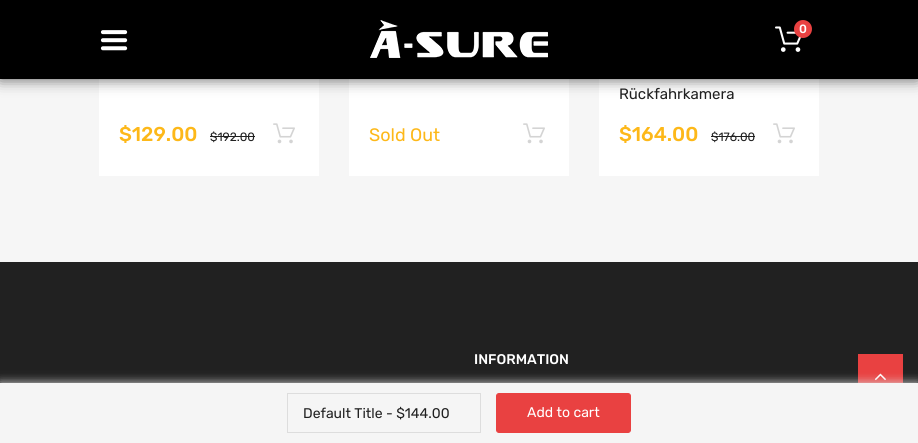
#include <cairo/cairo.h>
#include <math.h>
#include <stddef.h>


static void rounded_rect(cairo_t *cr, double x, double y, double w, double h, double r) {
  cairo_new_sub_path(cr);
  cairo_arc(cr, x + w - r, y + h - r, r, 0, M_PI / 2);
  cairo_arc(cr, x + r, y + h - r, r, M_PI / 2, M_PI);
  cairo_arc(cr, x + r, y + r, r, M_PI, 1.5 * M_PI);
  cairo_arc(cr, x + w - r, y + r, r, 1.5 * M_PI, 2 * M_PI);
  cairo_close_path(cr);
}

static void draw_shadow(cairo_t *cr, double x, double y, double w, double h, double r, double blur, double alpha) {
  cairo_push_group_with_content(cr, CAIRO_CONTENT_ALPHA);
  cairo_set_operator(cr, CAIRO_OPERATOR_SOURCE);
  for (int i = 15; i >= -15 && fmin(w, h) + blur * i / 3 > 0; i -= 2) {
    double e = blur * i / 6;
    cairo_set_source_rgba(cr, 0, 0, 0, alpha * erfc((i - 1) / 8.5) / 2);
    rounded_rect(cr, x - e, y - e, w + 2 * e, h + 2 * e, fmax(0, fmin(r + e + blur * .6, fmin(w, h) / 2 + e)));
    cairo_fill(cr);
  }
  cairo_pattern_t *soft = cairo_pop_group(cr);
  cairo_mask(cr, soft);
  cairo_pattern_destroy(soft);
}

static void draw_image(cairo_t *cr, const char *path, double x, double y, double w, double h) {
  cairo_surface_t *image = cairo_image_surface_create_from_png(path);
  cairo_save(cr);
  cairo_set_source_surface(cr, image, x, y);
  cairo_rectangle(cr, x, y, w, h);
  cairo_fill(cr);
  cairo_restore(cr);
  cairo_surface_destroy(image);
}

static void draw(cairo_t *cr) {
  cairo_set_source_rgb(cr, 246 / 255.0, 246 / 255.0, 246 / 255.0);
  cairo_paint(cr);
  cairo_set_source_rgb(cr, 1, 1, 1);
  cairo_rectangle(cr, 99, 79, 220, 97);
  cairo_fill(cr);
  cairo_rectangle(cr, 349, 79, 220, 97);
  cairo_fill(cr);
  cairo_rectangle(cr, 599, 79, 220, 97);
  cairo_fill(cr);
  cairo_set_source_rgb(cr, 0, 0, 0);
  draw_shadow(cr, 0, 0, 918, 79, 0, 7.5, 0.65);
  cairo_set_source_rgb(cr, 0, 0, 0);
  cairo_rectangle(cr, 0, 0, 918, 79);
  cairo_fill(cr);
  draw_image(cr, "images/1.png", 370, 20, 178, 38);
  draw_image(cr, "images/2.png", 775, 26, 27, 26);
  cairo_set_source_rgb(cr, 233 / 255.0, 65 / 255.0, 65 / 255.0);
  cairo_arc(cr, 803, 29, 9, 0, 2 * M_PI);
  cairo_fill(cr);
  draw_image(cr, "images/3.png", 100, 30, 28, 21);
  cairo_set_source_rgb(cr, 33 / 255.0, 33 / 255.0, 33 / 255.0);
  cairo_rectangle(cr, 210, 136, 45, 1);
  cairo_fill(cr);
  draw_image(cr, "images/4.png", 273, 123, 22, 21);
  draw_image(cr, "images/4.png", 523, 123, 22, 21);
  cairo_rectangle(cr, 711, 136, 44, 1);
  cairo_fill(cr);
  draw_image(cr, "images/4.png", 773, 123, 22, 21);
  cairo_rectangle(cr, 0, 262, 918, 121);
  cairo_fill(cr);
  cairo_set_source_rgb(cr, 233 / 255.0, 65 / 255.0, 65 / 255.0);
  cairo_rectangle(cr, 858, 354, 45, 29);
  cairo_fill(cr);
  draw_image(cr, "images/5.png", 874, 373, 12, 8);
  cairo_set_source_rgb(cr, 221 / 255.0, 221 / 255.0, 221 / 255.0);
  draw_shadow(cr, 0, 383, 918, 60, 0, 5, 1);
  cairo_set_source_rgb(cr, 245 / 255.0, 245 / 255.0, 245 / 255.0);
  cairo_rectangle(cr, 0, 383, 918, 60);
  cairo_fill(cr);
  cairo_rectangle(cr, 287.5, 393.5, 193, 39);
  cairo_set_source_rgb(cr, 221 / 255.0, 221 / 255.0, 221 / 255.0);
  cairo_set_line_width(cr, 1);
  cairo_stroke(cr);
  cairo_set_source_rgb(cr, 233 / 255.0, 65 / 255.0, 65 / 255.0);
  rounded_rect(cr, 496.5, 393.5, 134, 39, 2.5);
  cairo_fill_preserve(cr);
  cairo_stroke(cr);
  cairo_select_font_face(cr, "Rubik Medium", CAIRO_FONT_SLANT_NORMAL, CAIRO_FONT_WEIGHT_NORMAL);
  cairo_set_font_size(cr, 12);
  cairo_set_source_rgb(cr, 1, 1, 1);
  cairo_move_to(cr, 799, 33);
  cairo_show_text(cr, "0");
  cairo_set_font_size(cr, 20);
  cairo_set_source_rgb(cr, 253 / 255.0, 184 / 255.0, 25 / 255.0);
  cairo_move_to(cr, 119, 141);
  cairo_show_text(cr, "$129.00");
  cairo_select_font_face(cr, "Rubik", CAIRO_FONT_SLANT_NORMAL, CAIRO_FONT_WEIGHT_NORMAL);
  cairo_set_font_size(cr, 12);
  cairo_set_source_rgb(cr, 33 / 255.0, 33 / 255.0, 33 / 255.0);
  cairo_move_to(cr, 210, 141);
  cairo_show_text(cr, "$192.00");
  cairo_set_font_size(cr, 18);
  cairo_set_source_rgb(cr, 253 / 255.0, 184 / 255.0, 25 / 255.0);
  cairo_move_to(cr, 369, 141);
  cairo_show_text(cr, "Sold Out");
  cairo_set_font_size(cr, 15);
  cairo_set_source_rgb(cr, 33 / 255.0, 33 / 255.0, 33 / 255.0);
  cairo_move_to(cr, 619, 99);
  cairo_show_text(cr, "Rückfahrkamera");
  cairo_select_font_face(cr, "Rubik Medium", CAIRO_FONT_SLANT_NORMAL, CAIRO_FONT_WEIGHT_NORMAL);
  cairo_set_font_size(cr, 20);
  cairo_set_source_rgb(cr, 253 / 255.0, 184 / 255.0, 25 / 255.0);
  cairo_move_to(cr, 619, 141);
  cairo_show_text(cr, "$164.00");
  cairo_select_font_face(cr, "Rubik", CAIRO_FONT_SLANT_NORMAL, CAIRO_FONT_WEIGHT_NORMAL);
  cairo_set_font_size(cr, 12);
  cairo_set_source_rgb(cr, 33 / 255.0, 33 / 255.0, 33 / 255.0);
  cairo_move_to(cr, 711, 141);
  cairo_show_text(cr, "$176.00");
  cairo_select_font_face(cr, "Rubik Medium", CAIRO_FONT_SLANT_NORMAL, CAIRO_FONT_WEIGHT_NORMAL);
  cairo_set_font_size(cr, 14);
  cairo_set_source_rgb(cr, 1, 1, 1);
  cairo_move_to(cr, 474, 364);
  cairo_show_text(cr, "INFORMATION");
  cairo_select_font_face(cr, "Rubik", CAIRO_FONT_SLANT_NORMAL, CAIRO_FONT_WEIGHT_NORMAL);
  cairo_set_source_rgb(cr, 33 / 255.0, 33 / 255.0, 33 / 255.0);
  cairo_move_to(cr, 303, 418);
  cairo_show_text(cr, "Default Title - $144.00");
  cairo_set_source_rgb(cr, 1, 1, 1);
  cairo_move_to(cr, 527, 417);
  cairo_show_text(cr, "Add to cart");
}

int main(void) {
  cairo_surface_t *surface = cairo_image_surface_create(CAIRO_FORMAT_RGB24, 918, 443);
  cairo_t *cr = cairo_create(surface);
  cairo_font_options_t *options = cairo_font_options_create();
  cairo_font_options_set_hint_metrics(options, CAIRO_HINT_METRICS_OFF);
  cairo_font_options_set_hint_style(options, CAIRO_HINT_STYLE_NONE);
  cairo_set_font_options(cr, options);
  cairo_set_miter_limit(cr, 4);
  draw(cr);
  cairo_surface_write_to_png(surface, "out.png");
  cairo_font_options_destroy(options);
  cairo_destroy(cr);
  cairo_surface_destroy(surface);
  return 0;
}
